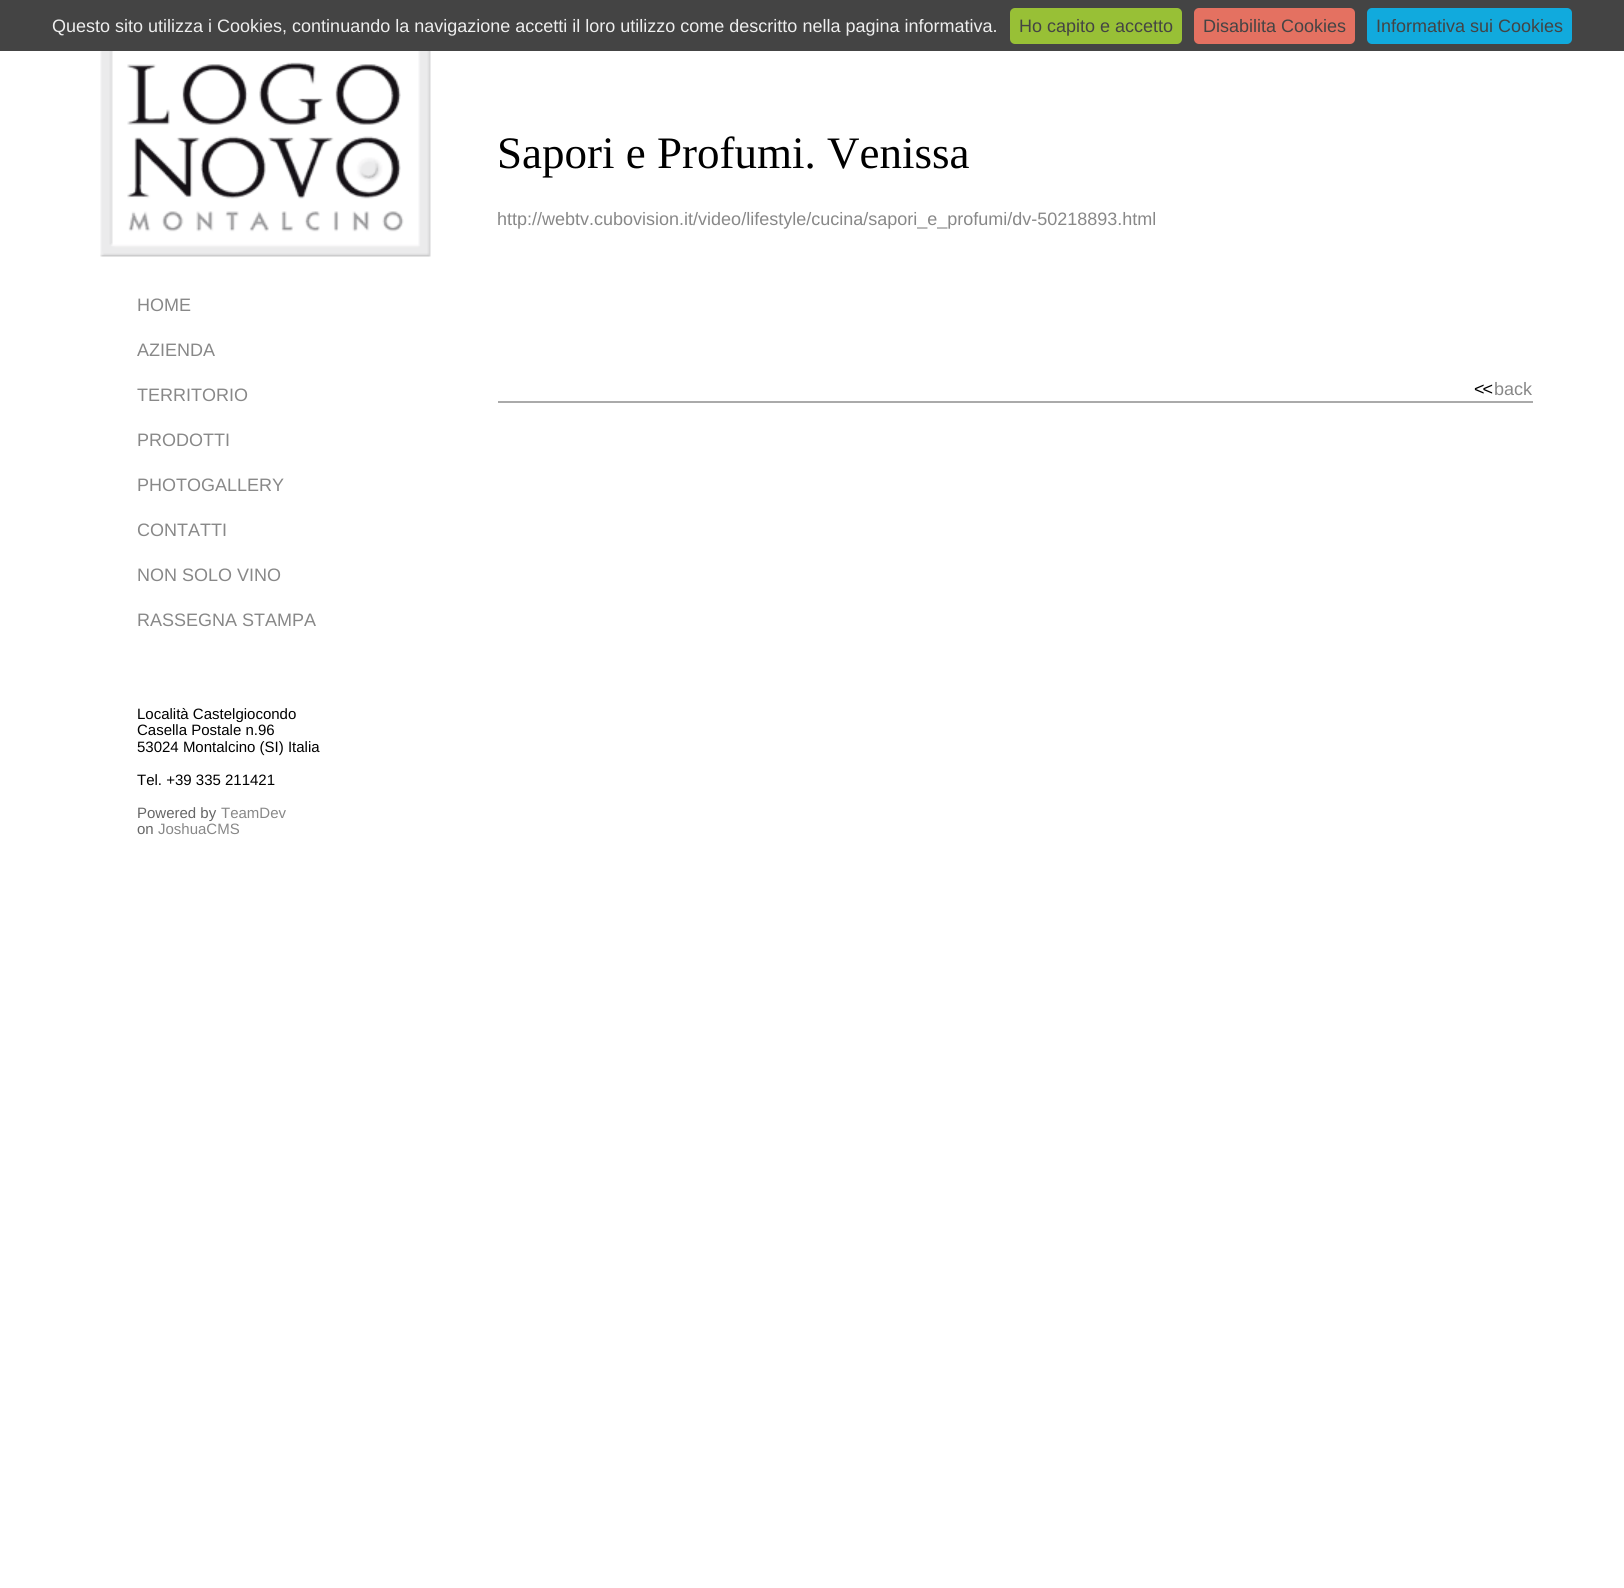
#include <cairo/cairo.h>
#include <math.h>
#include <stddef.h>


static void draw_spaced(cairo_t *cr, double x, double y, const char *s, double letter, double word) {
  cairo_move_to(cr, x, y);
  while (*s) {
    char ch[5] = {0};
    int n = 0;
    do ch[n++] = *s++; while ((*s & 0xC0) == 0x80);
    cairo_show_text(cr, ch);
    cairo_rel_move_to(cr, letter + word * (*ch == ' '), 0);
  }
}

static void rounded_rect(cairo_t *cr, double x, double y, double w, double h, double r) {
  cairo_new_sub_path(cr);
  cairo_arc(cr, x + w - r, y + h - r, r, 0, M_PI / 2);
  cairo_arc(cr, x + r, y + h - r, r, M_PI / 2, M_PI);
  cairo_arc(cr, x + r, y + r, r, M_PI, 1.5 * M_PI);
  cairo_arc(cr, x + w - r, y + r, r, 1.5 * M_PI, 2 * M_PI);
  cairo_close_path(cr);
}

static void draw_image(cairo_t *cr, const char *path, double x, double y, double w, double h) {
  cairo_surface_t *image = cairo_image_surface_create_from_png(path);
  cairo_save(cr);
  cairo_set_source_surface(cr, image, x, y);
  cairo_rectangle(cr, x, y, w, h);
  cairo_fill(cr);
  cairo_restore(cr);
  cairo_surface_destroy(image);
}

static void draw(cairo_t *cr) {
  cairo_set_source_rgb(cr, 1, 1, 1);
  cairo_paint(cr);
  cairo_set_source_rgb(cr, 68 / 255.0, 68 / 255.0, 68 / 255.0);
  cairo_rectangle(cr, 0, 0, 1624, 51);
  cairo_fill(cr);
  cairo_set_source_rgb(cr, 152 / 255.0, 192 / 255.0, 54 / 255.0);
  rounded_rect(cr, 1010, 8, 172, 36, 5);
  cairo_fill(cr);
  cairo_set_source_rgb(cr, 228 / 255.0, 113 / 255.0, 97 / 255.0);
  rounded_rect(cr, 1194, 8, 161, 36, 5);
  cairo_fill(cr);
  cairo_set_source_rgb(cr, 17 / 255.0, 170 / 255.0, 221 / 255.0);
  rounded_rect(cr, 1367, 8, 205, 36, 5);
  cairo_fill(cr);
  cairo_set_source_rgb(cr, 170 / 255.0, 170 / 255.0, 170 / 255.0);
  cairo_rectangle(cr, 498, 401, 1035, 2);
  cairo_fill(cr);
  draw_image(cr, "images/1.png", 100, 51, 331, 206);
  cairo_select_font_face(cr, "Liberation Sans", CAIRO_FONT_SLANT_NORMAL, CAIRO_FONT_WEIGHT_NORMAL);
  cairo_set_font_size(cr, 18);
  cairo_set_source_rgb(cr, 238 / 255.0, 238 / 255.0, 238 / 255.0);
  cairo_move_to(cr, 52, 32);
  cairo_show_text(cr, "Questo sito utilizza i Cookies, continuando la navigazione accetti il loro utilizzo come descritto nella pagina informativa.");
  cairo_set_source_rgb(cr, 68 / 255.0, 68 / 255.0, 68 / 255.0);
  cairo_move_to(cr, 1019, 32);
  cairo_show_text(cr, "Ho capito e accetto");
  cairo_move_to(cr, 1203, 32);
  cairo_show_text(cr, "Disabilita Cookies");
  cairo_move_to(cr, 1376, 32);
  cairo_show_text(cr, "Informativa sui Cookies");
  cairo_select_font_face(cr, "Liberation Serif", CAIRO_FONT_SLANT_NORMAL, CAIRO_FONT_WEIGHT_NORMAL);
  cairo_set_font_size(cr, 45);
  cairo_set_source_rgb(cr, 0, 0, 0);
  cairo_move_to(cr, 497, 168);
  cairo_show_text(cr, "Sapori e Profumi. Venissa");
  cairo_select_font_face(cr, "Liberation Sans", CAIRO_FONT_SLANT_NORMAL, CAIRO_FONT_WEIGHT_NORMAL);
  cairo_set_font_size(cr, 18);
  cairo_set_source_rgb(cr, 136 / 255.0, 136 / 255.0, 136 / 255.0);
  cairo_move_to(cr, 497, 225);
  cairo_show_text(cr, "http://webtv.cubovision.it/video/lifestyle/cucina/sapori_e_profumi/dv-50218893.html");
  cairo_set_source_rgb(cr, 0, 0, 0);
  draw_spaced(cr, 1474, 395, "<<", -2, 0);
  cairo_set_source_rgb(cr, 136 / 255.0, 136 / 255.0, 136 / 255.0);
  cairo_move_to(cr, 1494, 395);
  cairo_show_text(cr, "back");
  cairo_move_to(cr, 137, 311);
  cairo_show_text(cr, "HOME");
  cairo_move_to(cr, 137, 356);
  cairo_show_text(cr, "AZIENDA");
  cairo_move_to(cr, 137, 401);
  cairo_show_text(cr, "TERRITORIO");
  cairo_move_to(cr, 137, 446);
  cairo_show_text(cr, "PRODOTTI");
  cairo_move_to(cr, 137, 491);
  cairo_show_text(cr, "PHOTOGALLERY");
  cairo_move_to(cr, 137, 536);
  cairo_show_text(cr, "CONTATTI");
  cairo_move_to(cr, 137, 581);
  cairo_show_text(cr, "NON SOLO VINO");
  cairo_move_to(cr, 137, 626);
  cairo_show_text(cr, "RASSEGNA STAMPA");
  cairo_set_font_size(cr, 15);
  cairo_set_source_rgb(cr, 0, 0, 0);
  cairo_move_to(cr, 137, 719);
  cairo_show_text(cr, "Località Castelgiocondo");
  cairo_move_to(cr, 137, 735);
  cairo_show_text(cr, "Casella Postale n.96");
  cairo_move_to(cr, 137, 752);
  cairo_show_text(cr, "53024 Montalcino (SI) Italia");
  cairo_move_to(cr, 137, 785);
  cairo_show_text(cr, "Tel. +39 335 211421");
  cairo_set_source_rgb(cr, 102 / 255.0, 102 / 255.0, 102 / 255.0);
  cairo_move_to(cr, 137, 818);
  cairo_show_text(cr, "Powered by");
  cairo_set_source_rgb(cr, 136 / 255.0, 136 / 255.0, 136 / 255.0);
  cairo_move_to(cr, 221, 818);
  cairo_show_text(cr, "TeamDev");
  cairo_set_source_rgb(cr, 102 / 255.0, 102 / 255.0, 102 / 255.0);
  cairo_move_to(cr, 137, 834);
  cairo_show_text(cr, "on");
  cairo_set_source_rgb(cr, 136 / 255.0, 136 / 255.0, 136 / 255.0);
  cairo_move_to(cr, 158, 834);
  cairo_show_text(cr, "JoshuaCMS");
}

int main(void) {
  cairo_surface_t *surface = cairo_image_surface_create(CAIRO_FORMAT_RGB24, 1624, 1588);
  cairo_t *cr = cairo_create(surface);
  cairo_font_options_t *options = cairo_font_options_create();
  cairo_font_options_set_hint_metrics(options, CAIRO_HINT_METRICS_OFF);
  cairo_font_options_set_hint_style(options, CAIRO_HINT_STYLE_NONE);
  cairo_set_font_options(cr, options);
  cairo_set_miter_limit(cr, 4);
  draw(cr);
  cairo_surface_write_to_png(surface, "out.png");
  cairo_font_options_destroy(options);
  cairo_destroy(cr);
  cairo_surface_destroy(surface);
  return 0;
}
